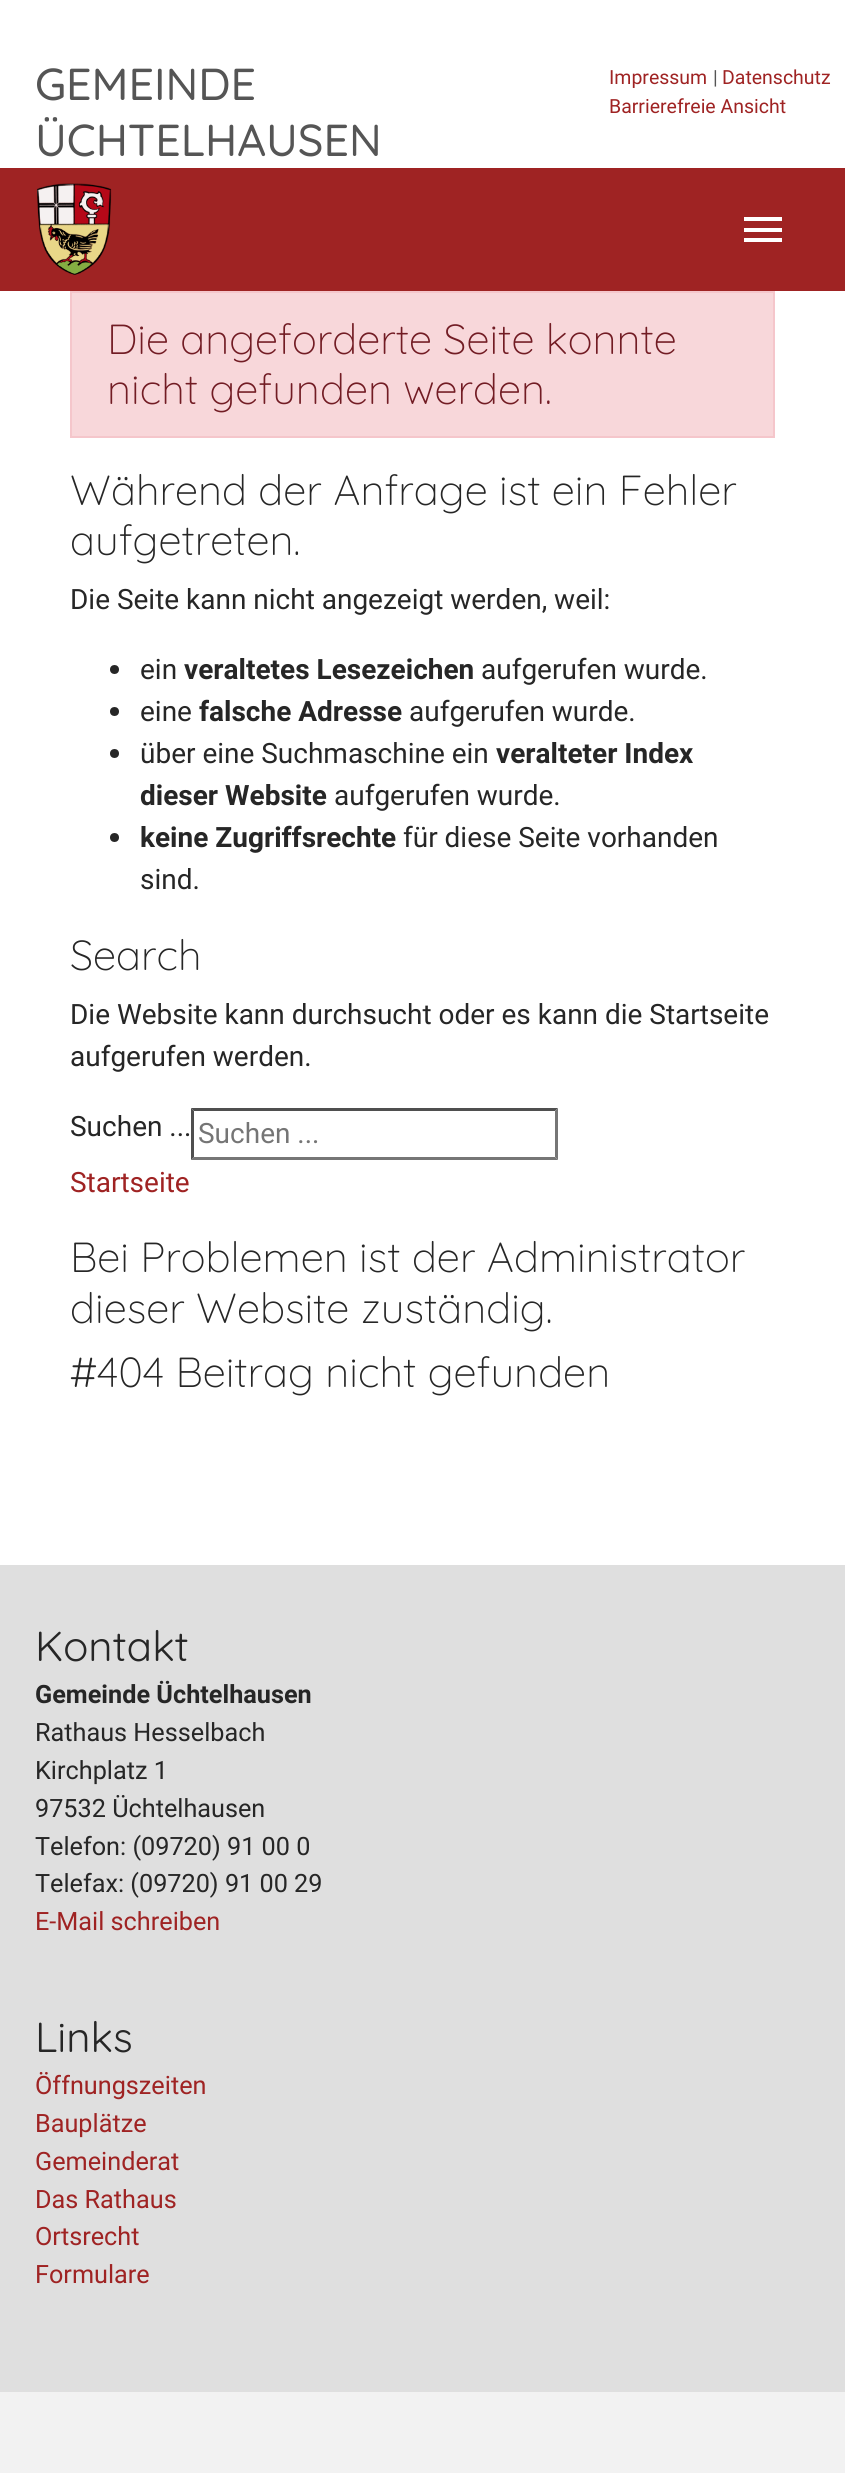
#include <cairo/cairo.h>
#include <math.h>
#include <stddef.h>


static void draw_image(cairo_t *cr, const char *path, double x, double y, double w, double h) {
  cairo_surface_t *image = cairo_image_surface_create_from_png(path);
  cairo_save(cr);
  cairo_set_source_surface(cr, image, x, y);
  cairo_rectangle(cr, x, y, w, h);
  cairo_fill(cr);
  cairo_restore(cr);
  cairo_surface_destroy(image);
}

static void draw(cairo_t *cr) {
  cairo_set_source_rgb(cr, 242 / 255.0, 242 / 255.0, 242 / 255.0);
  cairo_paint(cr);
  cairo_set_source_rgb(cr, 1, 1, 1);
  cairo_rectangle(cr, 0, 0, 845, 1565);
  cairo_fill(cr);
  cairo_set_source_rgb(cr, 159 / 255.0, 35 / 255.0, 35 / 255.0);
  cairo_rectangle(cr, 0, 168, 845, 123);
  cairo_fill(cr);
  draw_image(cr, "images/1.png", 37, 183, 75, 92);
  cairo_set_source_rgb(cr, 1, 1, 1);
  cairo_rectangle(cr, 744, 228, 38, 4);
  cairo_fill(cr);
  cairo_rectangle(cr, 744, 217, 38, 4);
  cairo_fill(cr);
  cairo_rectangle(cr, 744, 238, 38, 4);
  cairo_fill(cr);
  cairo_set_source_rgb(cr, 248 / 255.0, 215 / 255.0, 218 / 255.0);
  cairo_rectangle(cr, 71, 292, 703, 145);
  cairo_fill_preserve(cr);
  cairo_set_source_rgb(cr, 245 / 255.0, 198 / 255.0, 203 / 255.0);
  cairo_stroke(cr);
  cairo_set_source_rgb(cr, 38 / 255.0, 38 / 255.0, 38 / 255.0);
  cairo_arc(cr, 114.5, 669.5, 4.5, 0, 2 * M_PI);
  cairo_fill(cr);
  cairo_arc(cr, 114.5, 711.5, 4.5, 0, 2 * M_PI);
  cairo_fill(cr);
  cairo_arc(cr, 114.5, 753.5, 4.5, 0, 2 * M_PI);
  cairo_fill(cr);
  cairo_arc(cr, 114.5, 837.5, 4.5, 0, 2 * M_PI);
  cairo_fill(cr);
  cairo_set_source_rgb(cr, 79 / 255.0, 79 / 255.0, 79 / 255.0);
  cairo_new_path(cr);
  cairo_move_to(cr, 191, 1108);
  cairo_line_to(cr, 558, 1108);
  cairo_line_to(cr, 555, 1111);
  cairo_line_to(cr, 194, 1111);
  cairo_close_path(cr);
  cairo_fill(cr);
  cairo_set_source_rgb(cr, 118 / 255.0, 118 / 255.0, 118 / 255.0);
  cairo_new_path(cr);
  cairo_move_to(cr, 558, 1108);
  cairo_line_to(cr, 558, 1160);
  cairo_line_to(cr, 555, 1157);
  cairo_line_to(cr, 555, 1111);
  cairo_close_path(cr);
  cairo_fill(cr);
  cairo_new_path(cr);
  cairo_move_to(cr, 558, 1160);
  cairo_line_to(cr, 191, 1160);
  cairo_line_to(cr, 194, 1157);
  cairo_line_to(cr, 555, 1157);
  cairo_close_path(cr);
  cairo_fill(cr);
  cairo_set_source_rgb(cr, 79 / 255.0, 79 / 255.0, 79 / 255.0);
  cairo_new_path(cr);
  cairo_move_to(cr, 191, 1160);
  cairo_line_to(cr, 191, 1108);
  cairo_line_to(cr, 194, 1111);
  cairo_line_to(cr, 194, 1157);
  cairo_close_path(cr);
  cairo_fill(cr);
  cairo_set_source_rgb(cr, 223 / 255.0, 223 / 255.0, 223 / 255.0);
  cairo_rectangle(cr, 0, 1565, 845, 827);
  cairo_fill(cr);
  cairo_select_font_face(cr, "Quicksand Medium", CAIRO_FONT_SLANT_NORMAL, CAIRO_FONT_WEIGHT_NORMAL);
  cairo_set_font_size(cr, 44.75);
  cairo_set_source_rgb(cr, 85 / 255.0, 85 / 255.0, 85 / 255.0);
  cairo_move_to(cr, 35, 100);
  cairo_show_text(cr, "GEMEINDE");
  cairo_move_to(cr, 35, 156);
  cairo_show_text(cr, "ÜCHTELHAUSEN");
  cairo_select_font_face(cr, "Roboto", CAIRO_FONT_SLANT_NORMAL, CAIRO_FONT_WEIGHT_NORMAL);
  cairo_set_font_size(cr, 19.5);
  cairo_set_source_rgb(cr, 159 / 255.0, 35 / 255.0, 35 / 255.0);
  cairo_move_to(cr, 609, 84);
  cairo_show_text(cr, "Impressum");
  cairo_set_source_rgb(cr, 85 / 255.0, 85 / 255.0, 85 / 255.0);
  cairo_move_to(cr, 713, 84);
  cairo_show_text(cr, "|");
  cairo_set_source_rgb(cr, 159 / 255.0, 35 / 255.0, 35 / 255.0);
  cairo_move_to(cr, 722, 84);
  cairo_show_text(cr, "Datenschutz");
  cairo_move_to(cr, 609, 113);
  cairo_show_text(cr, "Barrierefreie Ansicht");
  cairo_select_font_face(cr, "Quicksand Light", CAIRO_FONT_SLANT_NORMAL, CAIRO_FONT_WEIGHT_NORMAL);
  cairo_set_font_size(cr, 42);
  cairo_set_source_rgb(cr, 114 / 255.0, 28 / 255.0, 36 / 255.0);
  cairo_move_to(cr, 107, 354);
  cairo_show_text(cr, "Die angeforderte Seite konnte");
  cairo_move_to(cr, 107, 404);
  cairo_show_text(cr, "nicht gefunden werden.");
  cairo_set_source_rgb(cr, 38 / 255.0, 38 / 255.0, 38 / 255.0);
  cairo_move_to(cr, 70, 505);
  cairo_show_text(cr, "Während der Anfrage ist ein Fehler");
  cairo_move_to(cr, 70, 555);
  cairo_show_text(cr, "aufgetreten.");
  cairo_select_font_face(cr, "Roboto", CAIRO_FONT_SLANT_NORMAL, CAIRO_FONT_WEIGHT_NORMAL);
  cairo_set_font_size(cr, 28);
  cairo_move_to(cr, 70, 609);
  cairo_show_text(cr, "Die Seite kann nicht angezeigt werden, weil:");
  cairo_move_to(cr, 140, 679);
  cairo_show_text(cr, "ein");
  cairo_select_font_face(cr, "Roboto", CAIRO_FONT_SLANT_NORMAL, CAIRO_FONT_WEIGHT_BOLD);
  cairo_move_to(cr, 184, 679);
  cairo_show_text(cr, "veraltetes Lesezeichen");
  cairo_select_font_face(cr, "Roboto", CAIRO_FONT_SLANT_NORMAL, CAIRO_FONT_WEIGHT_NORMAL);
  cairo_move_to(cr, 481, 679);
  cairo_show_text(cr, "aufgerufen wurde.");
  cairo_move_to(cr, 140, 721);
  cairo_show_text(cr, "eine");
  cairo_select_font_face(cr, "Roboto", CAIRO_FONT_SLANT_NORMAL, CAIRO_FONT_WEIGHT_BOLD);
  cairo_move_to(cr, 199, 721);
  cairo_show_text(cr, "falsche Adresse");
  cairo_select_font_face(cr, "Roboto", CAIRO_FONT_SLANT_NORMAL, CAIRO_FONT_WEIGHT_NORMAL);
  cairo_move_to(cr, 409, 721);
  cairo_show_text(cr, "aufgerufen wurde.");
  cairo_move_to(cr, 140, 763);
  cairo_show_text(cr, "über eine Suchmaschine ein");
  cairo_select_font_face(cr, "Roboto", CAIRO_FONT_SLANT_NORMAL, CAIRO_FONT_WEIGHT_BOLD);
  cairo_move_to(cr, 496, 763);
  cairo_show_text(cr, "veralteter Index");
  cairo_move_to(cr, 140, 805);
  cairo_show_text(cr, "dieser Website");
  cairo_select_font_face(cr, "Roboto", CAIRO_FONT_SLANT_NORMAL, CAIRO_FONT_WEIGHT_NORMAL);
  cairo_move_to(cr, 334, 805);
  cairo_show_text(cr, "aufgerufen wurde.");
  cairo_select_font_face(cr, "Roboto", CAIRO_FONT_SLANT_NORMAL, CAIRO_FONT_WEIGHT_BOLD);
  cairo_move_to(cr, 140, 847);
  cairo_show_text(cr, "keine Zugriffsrechte");
  cairo_select_font_face(cr, "Roboto", CAIRO_FONT_SLANT_NORMAL, CAIRO_FONT_WEIGHT_NORMAL);
  cairo_move_to(cr, 403, 847);
  cairo_show_text(cr, "für diese Seite vorhanden");
  cairo_move_to(cr, 140, 889);
  cairo_show_text(cr, "sind.");
  cairo_select_font_face(cr, "Quicksand Light", CAIRO_FONT_SLANT_NORMAL, CAIRO_FONT_WEIGHT_NORMAL);
  cairo_set_font_size(cr, 42);
  cairo_move_to(cr, 70, 970);
  cairo_show_text(cr, "Search");
  cairo_select_font_face(cr, "Roboto", CAIRO_FONT_SLANT_NORMAL, CAIRO_FONT_WEIGHT_NORMAL);
  cairo_set_font_size(cr, 28);
  cairo_move_to(cr, 70, 1024);
  cairo_show_text(cr, "Die Website kann durchsucht oder es kann die Startseite");
  cairo_move_to(cr, 70, 1066);
  cairo_show_text(cr, "aufgerufen werden.");
  cairo_move_to(cr, 70, 1136);
  cairo_show_text(cr, "Suchen ...");
  cairo_set_source_rgb(cr, 117 / 255.0, 117 / 255.0, 117 / 255.0);
  cairo_move_to(cr, 198, 1143);
  cairo_show_text(cr, "Suchen ...");
  cairo_set_source_rgb(cr, 159 / 255.0, 35 / 255.0, 35 / 255.0);
  cairo_move_to(cr, 70, 1192);
  cairo_show_text(cr, "Startseite");
  cairo_select_font_face(cr, "Quicksand Light", CAIRO_FONT_SLANT_NORMAL, CAIRO_FONT_WEIGHT_NORMAL);
  cairo_set_font_size(cr, 42);
  cairo_set_source_rgb(cr, 38 / 255.0, 38 / 255.0, 38 / 255.0);
  cairo_move_to(cr, 70, 1272);
  cairo_show_text(cr, "Bei Problemen ist der Administrator");
  cairo_move_to(cr, 70, 1323);
  cairo_show_text(cr, "dieser Website zuständig.");
  cairo_move_to(cr, 70, 1387);
  cairo_show_text(cr, "#404 Beitrag nicht gefunden");
  cairo_select_font_face(cr, "Quicksand", CAIRO_FONT_SLANT_NORMAL, CAIRO_FONT_WEIGHT_NORMAL);
  cairo_move_to(cr, 35, 1661);
  cairo_show_text(cr, "Kontakt");
  cairo_select_font_face(cr, "Roboto", CAIRO_FONT_SLANT_NORMAL, CAIRO_FONT_WEIGHT_BOLD);
  cairo_set_font_size(cr, 25.25);
  cairo_move_to(cr, 35, 1703);
  cairo_show_text(cr, "Gemeinde Üchtelhausen");
  cairo_select_font_face(cr, "Roboto", CAIRO_FONT_SLANT_NORMAL, CAIRO_FONT_WEIGHT_NORMAL);
  cairo_move_to(cr, 35, 1741);
  cairo_show_text(cr, "Rathaus Hesselbach");
  cairo_move_to(cr, 35, 1779);
  cairo_show_text(cr, "Kirchplatz 1");
  cairo_move_to(cr, 35, 1817);
  cairo_show_text(cr, "97532 Üchtelhausen");
  cairo_move_to(cr, 35, 1855);
  cairo_show_text(cr, "Telefon: (09720) 91 00 0");
  cairo_move_to(cr, 35, 1892);
  cairo_show_text(cr, "Telefax: (09720) 91 00 29");
  cairo_set_source_rgb(cr, 159 / 255.0, 35 / 255.0, 35 / 255.0);
  cairo_move_to(cr, 35, 1930);
  cairo_show_text(cr, "E-Mail schreiben");
  cairo_select_font_face(cr, "Quicksand", CAIRO_FONT_SLANT_NORMAL, CAIRO_FONT_WEIGHT_NORMAL);
  cairo_set_font_size(cr, 42);
  cairo_set_source_rgb(cr, 38 / 255.0, 38 / 255.0, 38 / 255.0);
  cairo_move_to(cr, 35, 2052);
  cairo_show_text(cr, "Links");
  cairo_select_font_face(cr, "Roboto", CAIRO_FONT_SLANT_NORMAL, CAIRO_FONT_WEIGHT_NORMAL);
  cairo_set_font_size(cr, 25.25);
  cairo_set_source_rgb(cr, 159 / 255.0, 35 / 255.0, 35 / 255.0);
  cairo_move_to(cr, 35, 2094);
  cairo_show_text(cr, "Öffnungszeiten");
  cairo_move_to(cr, 35, 2132);
  cairo_show_text(cr, "Bauplätze");
  cairo_move_to(cr, 35, 2170);
  cairo_show_text(cr, "Gemeinderat");
  cairo_move_to(cr, 35, 2208);
  cairo_show_text(cr, "Das Rathaus");
  cairo_move_to(cr, 35, 2245);
  cairo_show_text(cr, "Ortsrecht");
  cairo_move_to(cr, 35, 2283);
  cairo_show_text(cr, "Formulare");
}

int main(void) {
  cairo_surface_t *surface = cairo_image_surface_create(CAIRO_FORMAT_RGB24, 845, 2473);
  cairo_t *cr = cairo_create(surface);
  cairo_font_options_t *options = cairo_font_options_create();
  cairo_font_options_set_hint_metrics(options, CAIRO_HINT_METRICS_OFF);
  cairo_font_options_set_hint_style(options, CAIRO_HINT_STYLE_NONE);
  cairo_set_font_options(cr, options);
  cairo_set_miter_limit(cr, 4);
  draw(cr);
  cairo_surface_write_to_png(surface, "out.png");
  cairo_font_options_destroy(options);
  cairo_destroy(cr);
  cairo_surface_destroy(surface);
  return 0;
}
